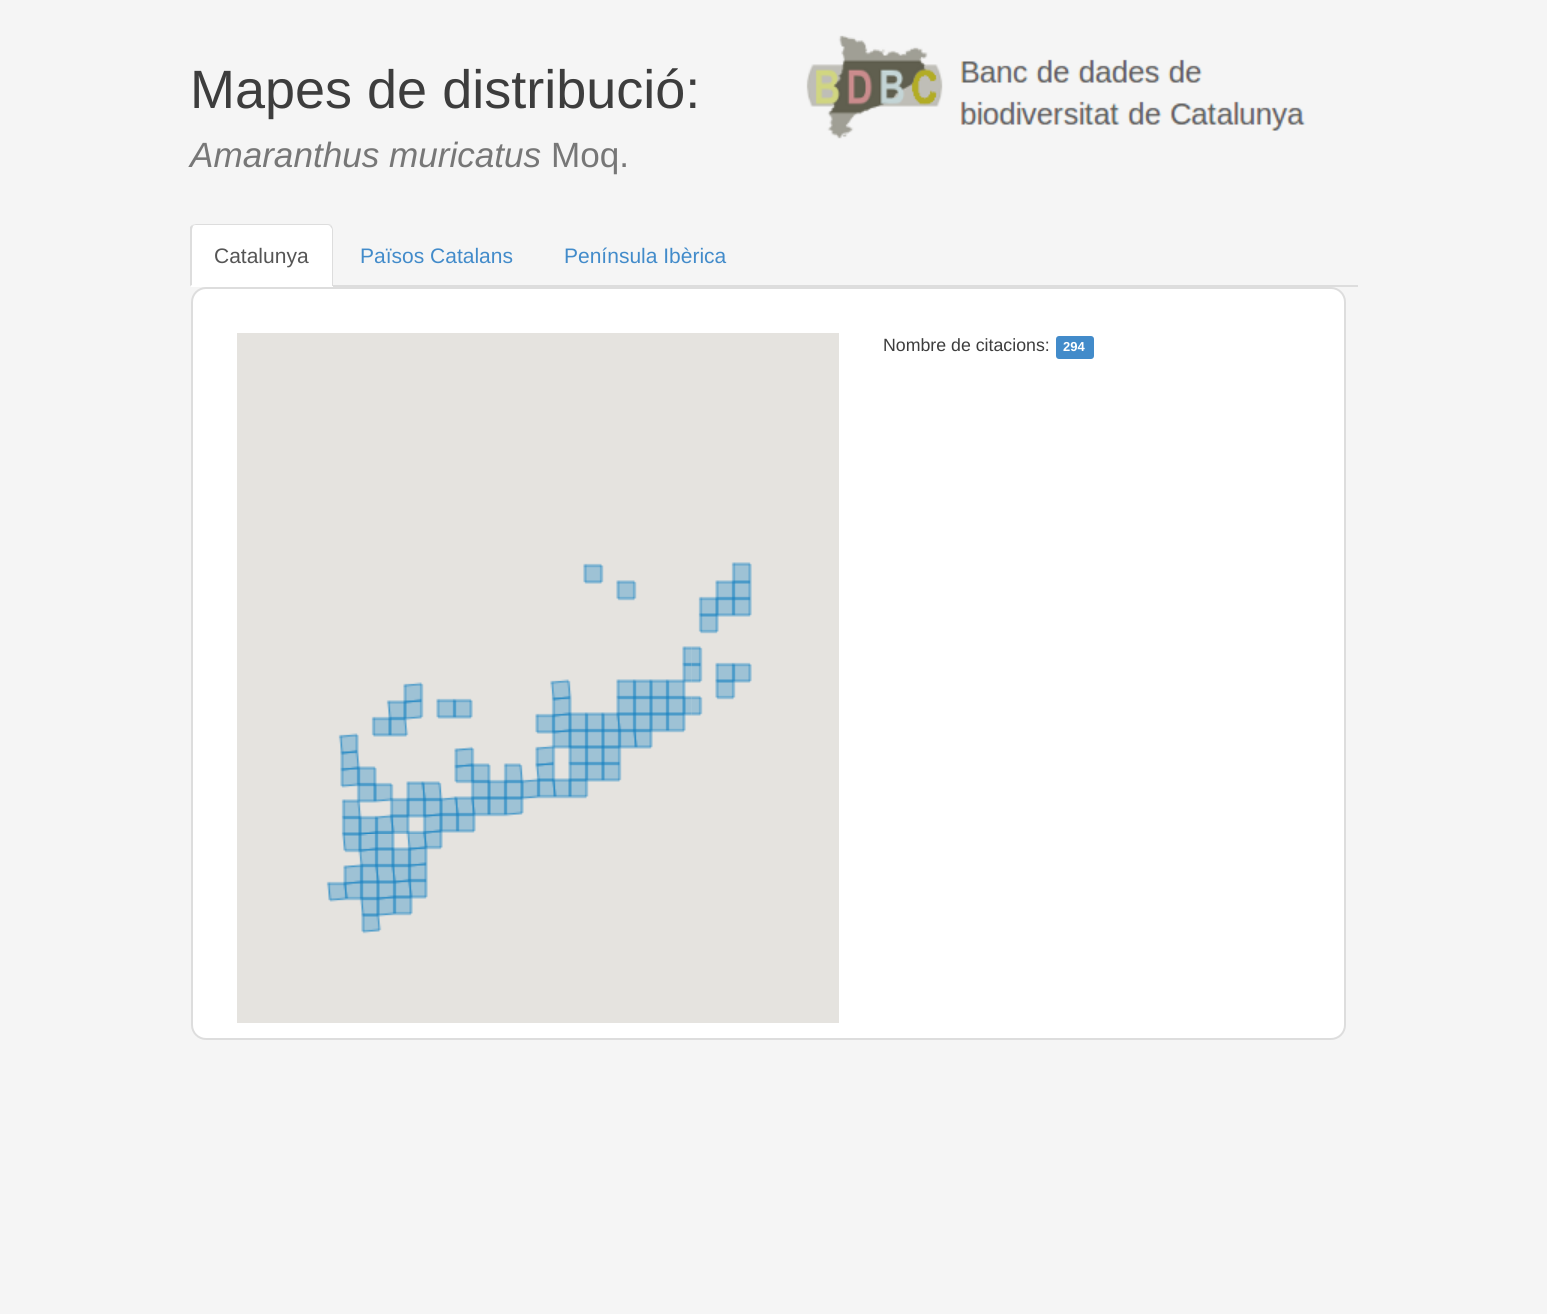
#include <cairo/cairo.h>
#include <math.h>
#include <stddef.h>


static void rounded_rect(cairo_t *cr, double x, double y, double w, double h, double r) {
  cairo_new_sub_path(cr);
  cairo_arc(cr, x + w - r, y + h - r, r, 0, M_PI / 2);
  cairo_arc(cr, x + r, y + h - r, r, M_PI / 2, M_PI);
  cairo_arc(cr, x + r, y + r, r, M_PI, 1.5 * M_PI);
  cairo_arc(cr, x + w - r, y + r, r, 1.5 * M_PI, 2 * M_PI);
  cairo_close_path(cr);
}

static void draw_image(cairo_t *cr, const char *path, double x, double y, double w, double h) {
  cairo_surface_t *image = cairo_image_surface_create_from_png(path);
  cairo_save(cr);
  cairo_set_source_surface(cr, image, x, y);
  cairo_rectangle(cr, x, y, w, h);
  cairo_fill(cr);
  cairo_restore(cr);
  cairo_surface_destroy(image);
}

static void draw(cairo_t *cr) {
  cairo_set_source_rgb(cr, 245 / 255.0, 245 / 255.0, 245 / 255.0);
  cairo_paint(cr);
  draw_image(cr, "images/1.png", 806, 35, 500, 104);
  cairo_set_source_rgb(cr, 221 / 255.0, 221 / 255.0, 221 / 255.0);
  cairo_rectangle(cr, 333, 285, 1025, 2);
  cairo_fill(cr);
  cairo_set_source_rgb(cr, 1, 1, 1);
  cairo_new_path(cr);
  cairo_move_to(cr, 197, 224);
  cairo_line_to(cr, 327, 224);
  cairo_curve_to(cr, 330.5, 224, 333, 226.5, 333, 230);
  cairo_line_to(cr, 333, 287);
  cairo_line_to(cr, 191, 287);
  cairo_line_to(cr, 191, 230);
  cairo_curve_to(cr, 191, 226.5, 193.5, 224, 197, 224);
  cairo_close_path(cr);
  cairo_fill(cr);
  cairo_set_source_rgb(cr, 221 / 255.0, 221 / 255.0, 221 / 255.0);
  cairo_new_path(cr);
  cairo_move_to(cr, 196, 224);
  cairo_line_to(cr, 192, 225);
  cairo_line_to(cr, 193, 226);
  cairo_curve_to(cr, 194, 225, 195, 225, 196, 225);
  cairo_line_to(cr, 327, 225);
  cairo_curve_to(cr, 328, 225, 329, 225, 330, 226);
  cairo_line_to(cr, 331, 225);
  cairo_curve_to(cr, 330, 224, 328, 224, 327, 224);
  cairo_close_path(cr);
  cairo_fill(cr);
  cairo_new_path(cr);
  cairo_move_to(cr, 331, 225);
  cairo_curve_to(cr, 332, 226, 333, 228, 333, 230);
  cairo_line_to(cr, 333, 286);
  cairo_line_to(cr, 332, 286);
  cairo_line_to(cr, 332, 285);
  cairo_line_to(cr, 332, 229);
  cairo_line_to(cr, 330, 226);
  cairo_close_path(cr);
  cairo_fill(cr);
  cairo_new_path(cr);
  cairo_move_to(cr, 190, 227);
  cairo_line_to(cr, 192, 225);
  cairo_line_to(cr, 193, 226);
  cairo_curve_to(cr, 193, 227, 192, 228, 192, 230);
  cairo_line_to(cr, 192, 285);
  cairo_line_to(cr, 190, 286);
  cairo_close_path(cr);
  cairo_fill(cr);
  cairo_set_source_rgb(cr, 1, 1, 1);
  rounded_rect(cr, 192, 288, 1153, 751, 14);
  cairo_fill_preserve(cr);
  cairo_set_source_rgb(cr, 221 / 255.0, 221 / 255.0, 221 / 255.0);
  cairo_stroke(cr);
  cairo_set_source_rgb(cr, 229 / 255.0, 227 / 255.0, 223 / 255.0);
  cairo_rectangle(cr, 237, 333, 602, 690);
  cairo_fill(cr);
  draw_image(cr, "images/2.png", 338, 563, 354, 271);
  draw_image(cr, "images/3.png", 691, 562, 61, 154);
  draw_image(cr, "images/4.png", 326, 834, 117, 100);
  cairo_set_source_rgb(cr, 66 / 255.0, 139 / 255.0, 202 / 255.0);
  rounded_rect(cr, 1056, 336, 38, 23, 3);
  cairo_fill(cr);
  cairo_select_font_face(cr, "Liberation Sans", CAIRO_FONT_SLANT_NORMAL, CAIRO_FONT_WEIGHT_NORMAL);
  cairo_set_font_size(cr, 54);
  cairo_set_source_rgb(cr, 61 / 255.0, 61 / 255.0, 61 / 255.0);
  cairo_move_to(cr, 190, 108);
  cairo_show_text(cr, "Mapes de distribució:");
  cairo_select_font_face(cr, "Liberation Sans", CAIRO_FONT_SLANT_ITALIC, CAIRO_FONT_WEIGHT_NORMAL);
  cairo_set_font_size(cr, 35.1);
  cairo_set_source_rgb(cr, 119 / 255.0, 119 / 255.0, 119 / 255.0);
  cairo_move_to(cr, 190, 167);
  cairo_show_text(cr, "Amaranthus muricatus");
  cairo_select_font_face(cr, "Liberation Sans", CAIRO_FONT_SLANT_NORMAL, CAIRO_FONT_WEIGHT_NORMAL);
  cairo_move_to(cr, 551, 167);
  cairo_show_text(cr, "Moq.");
  cairo_set_font_size(cr, 21);
  cairo_set_source_rgb(cr, 85 / 255.0, 85 / 255.0, 85 / 255.0);
  cairo_move_to(cr, 214, 263);
  cairo_show_text(cr, "Catalunya");
  cairo_set_source_rgb(cr, 66 / 255.0, 139 / 255.0, 202 / 255.0);
  cairo_move_to(cr, 360, 263);
  cairo_show_text(cr, "Països Catalans");
  cairo_move_to(cr, 564, 263);
  cairo_show_text(cr, "Península Ibèrica");
  cairo_set_font_size(cr, 17.75);
  cairo_set_source_rgb(cr, 61 / 255.0, 61 / 255.0, 61 / 255.0);
  cairo_move_to(cr, 883, 351);
  cairo_show_text(cr, "Nombre de citacions:");
  cairo_select_font_face(cr, "Liberation Sans", CAIRO_FONT_SLANT_NORMAL, CAIRO_FONT_WEIGHT_BOLD);
  cairo_set_font_size(cr, 13);
  cairo_set_source_rgb(cr, 1, 1, 1);
  cairo_move_to(cr, 1063, 351);
  cairo_show_text(cr, "294");
}

int main(void) {
  cairo_surface_t *surface = cairo_image_surface_create(CAIRO_FORMAT_RGB24, 1547, 1314);
  cairo_t *cr = cairo_create(surface);
  cairo_font_options_t *options = cairo_font_options_create();
  cairo_font_options_set_hint_metrics(options, CAIRO_HINT_METRICS_OFF);
  cairo_font_options_set_hint_style(options, CAIRO_HINT_STYLE_NONE);
  cairo_set_font_options(cr, options);
  cairo_set_miter_limit(cr, 4);
  draw(cr);
  cairo_surface_write_to_png(surface, "out.png");
  cairo_font_options_destroy(options);
  cairo_destroy(cr);
  cairo_surface_destroy(surface);
  return 0;
}
